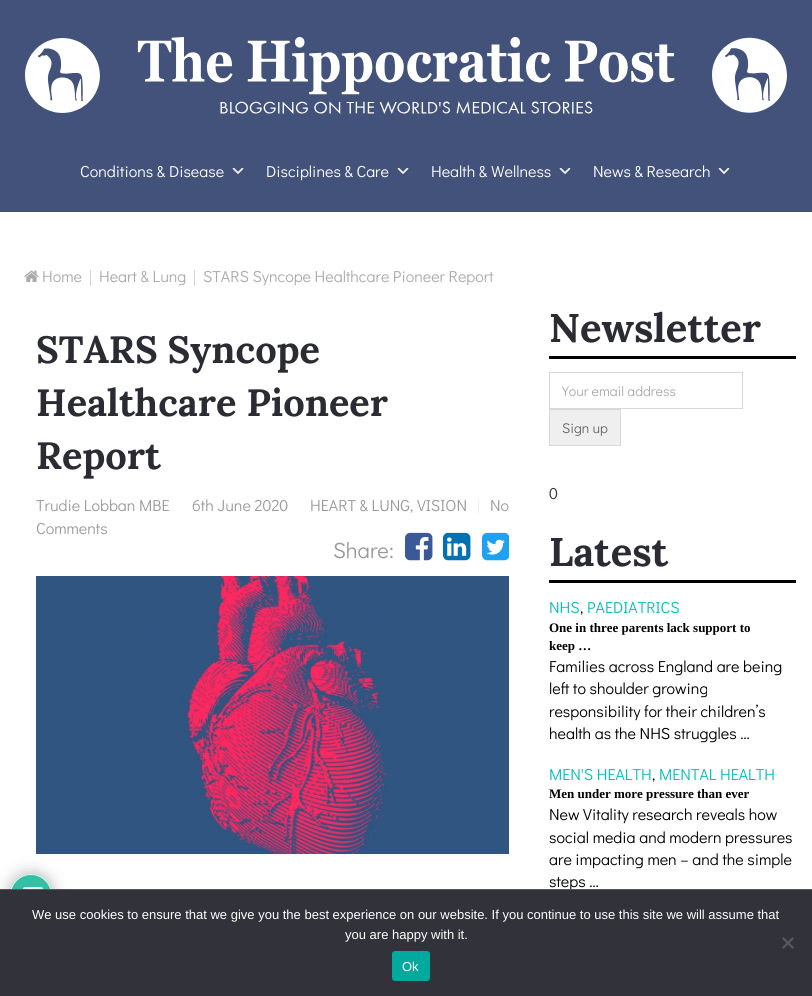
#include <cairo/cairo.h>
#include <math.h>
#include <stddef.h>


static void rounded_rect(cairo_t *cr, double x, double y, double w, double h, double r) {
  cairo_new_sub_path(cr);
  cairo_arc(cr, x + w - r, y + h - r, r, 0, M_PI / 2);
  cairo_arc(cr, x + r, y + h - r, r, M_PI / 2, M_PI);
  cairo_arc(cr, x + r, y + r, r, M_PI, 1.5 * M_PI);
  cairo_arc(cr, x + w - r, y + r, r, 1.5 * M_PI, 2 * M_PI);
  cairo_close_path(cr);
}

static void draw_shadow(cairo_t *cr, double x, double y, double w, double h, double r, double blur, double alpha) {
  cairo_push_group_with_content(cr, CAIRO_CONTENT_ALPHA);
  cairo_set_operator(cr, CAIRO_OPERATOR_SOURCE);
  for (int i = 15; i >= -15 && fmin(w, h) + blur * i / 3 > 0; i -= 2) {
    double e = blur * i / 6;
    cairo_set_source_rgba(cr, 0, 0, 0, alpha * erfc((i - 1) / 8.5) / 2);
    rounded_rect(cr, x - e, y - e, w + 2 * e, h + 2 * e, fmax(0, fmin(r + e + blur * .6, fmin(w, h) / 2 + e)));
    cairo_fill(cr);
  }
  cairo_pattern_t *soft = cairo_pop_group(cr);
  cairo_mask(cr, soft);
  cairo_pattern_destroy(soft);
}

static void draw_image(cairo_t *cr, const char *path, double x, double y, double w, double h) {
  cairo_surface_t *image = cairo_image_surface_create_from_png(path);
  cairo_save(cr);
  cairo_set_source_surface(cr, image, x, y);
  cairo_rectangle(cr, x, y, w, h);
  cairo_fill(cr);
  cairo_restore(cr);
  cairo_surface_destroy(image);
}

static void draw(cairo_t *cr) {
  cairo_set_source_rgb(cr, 1, 1, 1);
  cairo_paint(cr);
  cairo_set_source_rgb(cr, 67 / 255.0, 82 / 255.0, 123 / 255.0);
  cairo_rectangle(cr, 0, 0, 812, 212);
  cairo_fill(cr);
  draw_image(cr, "images/1.png", 25, 37, 762, 77);
  draw_image(cr, "images/2.png", 232, 167, 12, 7);
  draw_image(cr, "images/2.png", 397, 167, 12, 7);
  draw_image(cr, "images/2.png", 559, 167, 12, 7);
  draw_image(cr, "images/2.png", 718, 167, 12, 7);
  draw_image(cr, "images/3.png", 24, 270, 15, 12);
  cairo_set_source_rgb(cr, 214 / 255.0, 214 / 255.0, 214 / 255.0);
  cairo_rectangle(cr, 90, 270, 1, 16);
  cairo_fill(cr);
  cairo_rectangle(cr, 194, 270, 1, 16);
  cairo_fill(cr);
  draw_image(cr, "images/4.png", 405, 532, 28, 29);
  draw_image(cr, "images/5.png", 443, 532, 28, 29);
  draw_image(cr, "images/6.png", 482, 532, 27, 29);
  draw_image(cr, "images/7.png", 36, 576, 473, 278);
  cairo_set_source_rgb(cr, 0, 0, 0);
  cairo_rectangle(cr, 549, 356, 247, 3);
  cairo_fill(cr);
  cairo_rectangle(cr, 549.5, 372.5, 193, 36);
  cairo_set_source_rgb(cr, 216 / 255.0, 216 / 255.0, 216 / 255.0);
  cairo_set_line_width(cr, 1);
  cairo_stroke(cr);
  cairo_set_source_rgb(cr, 239 / 255.0, 239 / 255.0, 239 / 255.0);
  cairo_rectangle(cr, 549.5, 409.5, 71, 36);
  cairo_fill_preserve(cr);
  cairo_set_source_rgb(cr, 216 / 255.0, 216 / 255.0, 216 / 255.0);
  cairo_stroke(cr);
  cairo_set_source_rgb(cr, 0, 0, 0);
  cairo_rectangle(cr, 549, 580, 247, 3);
  cairo_fill(cr);
  cairo_save(cr);
  cairo_set_fill_rule(cr, CAIRO_FILL_RULE_EVEN_ODD);
  cairo_new_path(cr);
  cairo_move_to(cr, 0, 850);
  cairo_line_to(cr, 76, 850);
  cairo_line_to(cr, 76, 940);
  cairo_line_to(cr, 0, 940);
  cairo_close_path(cr);
  cairo_move_to(cr, 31, 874);
  cairo_curve_to(cr, 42.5, 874, 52, 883.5, 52, 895);
  cairo_curve_to(cr, 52, 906.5, 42.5, 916, 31, 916);
  cairo_curve_to(cr, 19.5, 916, 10, 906.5, 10, 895);
  cairo_curve_to(cr, 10, 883.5, 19.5, 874, 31, 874);
  cairo_close_path(cr);
  cairo_clip(cr);
  cairo_set_source_rgb(cr, 170 / 255.0, 170 / 255.0, 170 / 255.0);
  draw_shadow(cr, 10, 874, 42, 42, 21, 7.5, 0.9);
  cairo_restore(cr);
  cairo_set_source_rgba(cr, 29 / 255.0, 185 / 255.0, 154 / 255.0, 0.9);
  cairo_arc(cr, 31, 895, 21, 0, 2 * M_PI);
  cairo_fill(cr);
  cairo_arc(cr, 31, 895, 20.5, 0, 2 * M_PI);
  cairo_set_source_rgba(cr, 1, 1, 1, 0.9);
  cairo_stroke(cr);
  draw_image(cr, "images/8.png", 23, 887, 20, 2);
  cairo_select_font_face(cr, "Didact Gothic", CAIRO_FONT_SLANT_NORMAL, CAIRO_FONT_WEIGHT_NORMAL);
  cairo_set_font_size(cr, 16);
  cairo_set_source_rgb(cr, 1, 1, 1);
  cairo_move_to(cr, 80, 177);
  cairo_show_text(cr, "Conditions & Disease");
  cairo_move_to(cr, 266, 177);
  cairo_show_text(cr, "Disciplines & Care");
  cairo_move_to(cr, 431, 177);
  cairo_show_text(cr, "Health & Wellness");
  cairo_move_to(cr, 593, 177);
  cairo_show_text(cr, "News & Research");
  cairo_set_source_rgb(cr, 170 / 255.0, 170 / 255.0, 170 / 255.0);
  cairo_move_to(cr, 42, 282);
  cairo_show_text(cr, "Home");
  cairo_move_to(cr, 99, 282);
  cairo_show_text(cr, "Heart & Lung");
  cairo_move_to(cr, 203, 282);
  cairo_show_text(cr, "STARS Syncope Healthcare Pioneer Report");
  cairo_select_font_face(cr, "Lora", CAIRO_FONT_SLANT_NORMAL, CAIRO_FONT_WEIGHT_BOLD);
  cairo_set_font_size(cr, 38);
  cairo_set_source_rgb(cr, 43 / 255.0, 44 / 255.0, 51 / 255.0);
  cairo_move_to(cr, 36, 363);
  cairo_show_text(cr, "STARS Syncope");
  cairo_move_to(cr, 36, 416);
  cairo_show_text(cr, "Healthcare Pioneer");
  cairo_move_to(cr, 36, 469);
  cairo_show_text(cr, "Report");
  cairo_select_font_face(cr, "Didact Gothic", CAIRO_FONT_SLANT_NORMAL, CAIRO_FONT_WEIGHT_NORMAL);
  cairo_set_font_size(cr, 16);
  cairo_set_source_rgb(cr, 155 / 255.0, 155 / 255.0, 155 / 255.0);
  cairo_move_to(cr, 36, 511);
  cairo_show_text(cr, "Trudie Lobban MBE");
  cairo_move_to(cr, 192, 511);
  cairo_show_text(cr, "6th June 2020");
  cairo_move_to(cr, 310, 511);
  cairo_show_text(cr, "HEART & LUNG, VISION");
  cairo_set_source_rgb(cr, 235 / 255.0, 235 / 255.0, 235 / 255.0);
  cairo_move_to(cr, 477, 511);
  cairo_show_text(cr, "|");
  cairo_set_source_rgb(cr, 155 / 255.0, 155 / 255.0, 155 / 255.0);
  cairo_move_to(cr, 490, 511);
  cairo_show_text(cr, "No");
  cairo_move_to(cr, 36, 534);
  cairo_show_text(cr, "Comments");
  cairo_set_font_size(cr, 22);
  cairo_move_to(cr, 333, 558);
  cairo_show_text(cr, "Share:");
  cairo_select_font_face(cr, "Lora", CAIRO_FONT_SLANT_NORMAL, CAIRO_FONT_WEIGHT_BOLD);
  cairo_set_font_size(cr, 40);
  cairo_set_source_rgb(cr, 43 / 255.0, 44 / 255.0, 51 / 255.0);
  cairo_move_to(cr, 549, 342);
  cairo_show_text(cr, "Newsletter");
  cairo_select_font_face(cr, "Didact Gothic", CAIRO_FONT_SLANT_NORMAL, CAIRO_FONT_WEIGHT_NORMAL);
  cairo_set_font_size(cr, 14);
  cairo_set_source_rgb(cr, 170 / 255.0, 170 / 255.0, 170 / 255.0);
  cairo_move_to(cr, 562, 396);
  cairo_show_text(cr, "Your email address");
  cairo_set_source_rgb(cr, 102 / 255.0, 102 / 255.0, 102 / 255.0);
  cairo_move_to(cr, 562, 433);
  cairo_show_text(cr, "Sign up");
  cairo_set_font_size(cr, 16);
  cairo_set_source_rgb(cr, 51 / 255.0, 51 / 255.0, 51 / 255.0);
  cairo_move_to(cr, 549, 499);
  cairo_show_text(cr, "0");
  cairo_select_font_face(cr, "Lora", CAIRO_FONT_SLANT_NORMAL, CAIRO_FONT_WEIGHT_BOLD);
  cairo_set_font_size(cr, 40);
  cairo_set_source_rgb(cr, 43 / 255.0, 44 / 255.0, 51 / 255.0);
  cairo_move_to(cr, 549, 566);
  cairo_show_text(cr, "Latest");
  cairo_select_font_face(cr, "Didact Gothic", CAIRO_FONT_SLANT_NORMAL, CAIRO_FONT_WEIGHT_NORMAL);
  cairo_set_font_size(cr, 16);
  cairo_set_source_rgb(cr, 5 / 255.0, 191 / 255.0, 190 / 255.0);
  cairo_move_to(cr, 549, 613);
  cairo_show_text(cr, "NHS");
  cairo_set_source_rgb(cr, 0, 0, 0);
  cairo_move_to(cr, 580, 613);
  cairo_show_text(cr, ",");
  cairo_set_source_rgb(cr, 5 / 255.0, 191 / 255.0, 190 / 255.0);
  cairo_move_to(cr, 587, 613);
  cairo_show_text(cr, "PAEDIATRICS");
  cairo_select_font_face(cr, "Liberation Serif", CAIRO_FONT_SLANT_NORMAL, CAIRO_FONT_WEIGHT_BOLD);
  cairo_set_font_size(cr, 13);
  cairo_set_source_rgb(cr, 0, 0, 0);
  cairo_move_to(cr, 549, 632);
  cairo_show_text(cr, "One in three parents lack support to");
  cairo_move_to(cr, 549, 650);
  cairo_show_text(cr, "keep …");
  cairo_select_font_face(cr, "Didact Gothic", CAIRO_FONT_SLANT_NORMAL, CAIRO_FONT_WEIGHT_NORMAL);
  cairo_set_font_size(cr, 16);
  cairo_move_to(cr, 549, 672);
  cairo_show_text(cr, "Families across England are being");
  cairo_move_to(cr, 549, 694);
  cairo_show_text(cr, "left to shoulder growing");
  cairo_move_to(cr, 549, 717);
  cairo_show_text(cr, "responsibility for their children’s");
  cairo_move_to(cr, 549, 739);
  cairo_show_text(cr, "health as the NHS struggles …");
  cairo_set_source_rgb(cr, 5 / 255.0, 191 / 255.0, 190 / 255.0);
  cairo_move_to(cr, 549, 780);
  cairo_show_text(cr, "MEN'S HEALTH");
  cairo_set_source_rgb(cr, 0, 0, 0);
  cairo_move_to(cr, 652, 780);
  cairo_show_text(cr, ",");
  cairo_set_source_rgb(cr, 5 / 255.0, 191 / 255.0, 190 / 255.0);
  cairo_move_to(cr, 659, 780);
  cairo_show_text(cr, "MENTAL HEALTH");
  cairo_select_font_face(cr, "Liberation Serif", CAIRO_FONT_SLANT_NORMAL, CAIRO_FONT_WEIGHT_BOLD);
  cairo_set_font_size(cr, 13);
  cairo_set_source_rgb(cr, 0, 0, 0);
  cairo_move_to(cr, 549, 798);
  cairo_show_text(cr, "Men under more pressure than ever");
  cairo_select_font_face(cr, "Didact Gothic", CAIRO_FONT_SLANT_NORMAL, CAIRO_FONT_WEIGHT_NORMAL);
  cairo_set_font_size(cr, 16);
  cairo_move_to(cr, 549, 820);
  cairo_show_text(cr, "New Vitality research reveals how");
  cairo_move_to(cr, 549, 843);
  cairo_show_text(cr, "social media and modern pressures");
  cairo_move_to(cr, 549, 865);
  cairo_show_text(cr, "are impacting men – and the simple");
  cairo_move_to(cr, 549, 887);
  cairo_show_text(cr, "steps …");
  cairo_set_source_rgb(cr, 50 / 255.0, 50 / 255.0, 58 / 255.0);
  cairo_rectangle(cr, 0, 890, 812, 106);
  cairo_fill(cr);
  cairo_set_source_rgb(cr, 85 / 255.0, 85 / 255.0, 85 / 255.0);
  cairo_rectangle(cr, 0, 889, 812, 1);
  cairo_fill(cr);
  cairo_select_font_face(cr, "Liberation Sans", CAIRO_FONT_SLANT_NORMAL, CAIRO_FONT_WEIGHT_NORMAL);
  cairo_set_font_size(cr, 13);
  cairo_set_source_rgb(cr, 1, 1, 1);
  cairo_move_to(cr, 32, 919);
  cairo_show_text(cr, "We use cookies to ensure that we give you the best experience on our website. If you continue to use this site we will assume that");
  cairo_move_to(cr, 345, 939);
  cairo_show_text(cr, "you are happy with it.");
  cairo_set_source_rgb(cr, 89 / 255.0, 89 / 255.0, 93 / 255.0);
  cairo_new_path(cr);
  cairo_move_to(cr, 792.5, 937);
  cairo_line_to(cr, 794, 938.5);
  cairo_line_to(cr, 783.5, 949);
  cairo_line_to(cr, 782, 947.5);
  cairo_close_path(cr);
  cairo_fill(cr);
  cairo_new_path(cr);
  cairo_move_to(cr, 782, 938.5);
  cairo_line_to(cr, 783.5, 937);
  cairo_line_to(cr, 794, 947.5);
  cairo_line_to(cr, 792.5, 949);
  cairo_close_path(cr);
  cairo_fill(cr);
  cairo_set_source_rgb(cr, 0, 169 / 255.0, 157 / 255.0);
  rounded_rect(cr, 392, 951, 38, 30, 3);
  cairo_fill(cr);
  cairo_set_source_rgb(cr, 1, 1, 1);
  cairo_move_to(cr, 402, 971);
  cairo_show_text(cr, "Ok");
}

int main(void) {
  cairo_surface_t *surface = cairo_image_surface_create(CAIRO_FORMAT_RGB24, 812, 996);
  cairo_t *cr = cairo_create(surface);
  cairo_font_options_t *options = cairo_font_options_create();
  cairo_font_options_set_hint_metrics(options, CAIRO_HINT_METRICS_OFF);
  cairo_font_options_set_hint_style(options, CAIRO_HINT_STYLE_NONE);
  cairo_set_font_options(cr, options);
  cairo_set_miter_limit(cr, 4);
  draw(cr);
  cairo_surface_write_to_png(surface, "out.png");
  cairo_font_options_destroy(options);
  cairo_destroy(cr);
  cairo_surface_destroy(surface);
  return 0;
}
